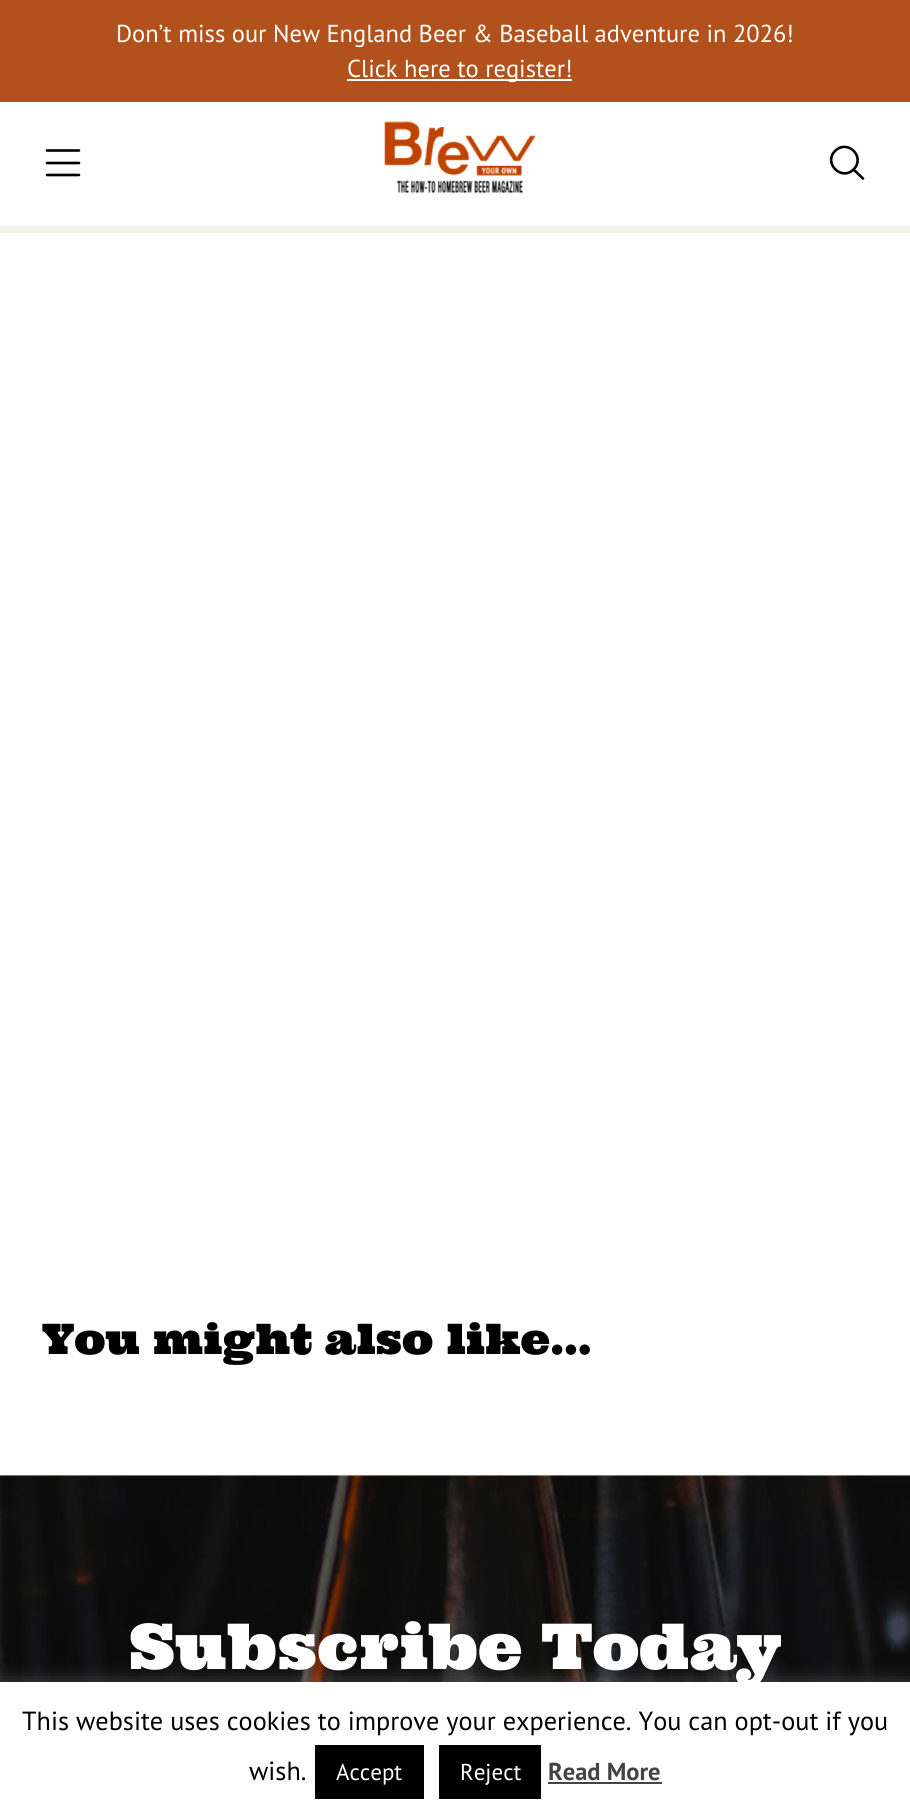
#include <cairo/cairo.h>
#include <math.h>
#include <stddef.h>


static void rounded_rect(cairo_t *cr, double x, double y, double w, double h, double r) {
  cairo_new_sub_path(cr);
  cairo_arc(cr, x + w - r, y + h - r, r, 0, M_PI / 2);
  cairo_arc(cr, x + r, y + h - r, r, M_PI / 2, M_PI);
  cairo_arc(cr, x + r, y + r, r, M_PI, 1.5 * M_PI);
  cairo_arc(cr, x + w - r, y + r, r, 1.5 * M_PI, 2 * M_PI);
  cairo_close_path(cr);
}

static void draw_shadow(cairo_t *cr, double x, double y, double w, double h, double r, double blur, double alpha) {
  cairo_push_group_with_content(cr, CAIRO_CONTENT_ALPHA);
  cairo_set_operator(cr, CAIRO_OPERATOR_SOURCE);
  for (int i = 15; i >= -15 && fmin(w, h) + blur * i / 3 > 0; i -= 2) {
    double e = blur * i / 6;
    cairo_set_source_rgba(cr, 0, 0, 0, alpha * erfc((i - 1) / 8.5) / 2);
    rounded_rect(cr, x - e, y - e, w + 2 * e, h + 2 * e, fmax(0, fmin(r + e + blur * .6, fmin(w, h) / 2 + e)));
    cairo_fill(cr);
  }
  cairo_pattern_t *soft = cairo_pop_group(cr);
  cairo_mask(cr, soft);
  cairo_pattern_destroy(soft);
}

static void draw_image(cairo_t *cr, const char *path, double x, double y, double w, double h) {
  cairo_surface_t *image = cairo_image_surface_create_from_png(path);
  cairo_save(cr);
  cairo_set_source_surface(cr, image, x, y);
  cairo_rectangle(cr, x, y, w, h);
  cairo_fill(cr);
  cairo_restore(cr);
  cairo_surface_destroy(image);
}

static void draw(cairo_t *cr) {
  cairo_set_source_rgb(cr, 1, 1, 1);
  cairo_paint(cr);
  cairo_set_source_rgb(cr, 178 / 255.0, 81 / 255.0, 27 / 255.0);
  cairo_rectangle(cr, 0, 0, 910, 102);
  cairo_fill(cr);
  cairo_set_source_rgb(cr, 1, 1, 1);
  cairo_rectangle(cr, 347, 79, 225, 2);
  cairo_fill(cr);
  cairo_set_source_rgb(cr, 245 / 255.0, 243 / 255.0, 236 / 255.0);
  cairo_rectangle(cr, 0, 226, 910, 7);
  cairo_fill(cr);
  cairo_new_path(cr);
  cairo_move_to(cr, 47, 150.5);
  cairo_line_to(cr, 79, 150.5);
  cairo_move_to(cr, 47, 163);
  cairo_line_to(cr, 79, 163);
  cairo_move_to(cr, 47, 175);
  cairo_line_to(cr, 79, 175);
  cairo_set_source_rgb(cr, 0, 0, 0);
  cairo_set_line_width(cr, 2.6);
  cairo_set_line_cap(cr, CAIRO_LINE_CAP_ROUND);
  cairo_stroke(cr);
  draw_image(cr, "images/1.png", 384, 121, 152, 73);
  cairo_new_path(cr);
  cairo_move_to(cr, 863, 178.5);
  cairo_line_to(cr, 853.5, 169.5);
  cairo_move_to(cr, 853.5, 169.5);
  cairo_curve_to(cr, 866, 157, 847.5, 138.5, 835, 151);
  cairo_curve_to(cr, 823, 163, 841.5, 181.5, 853.5, 169.5);
  cairo_close_path(cr);
  cairo_set_line_join(cr, CAIRO_LINE_JOIN_ROUND);
  cairo_stroke(cr);
  draw_image(cr, "images/2.png", 0, 1475, 910, 207);
  cairo_set_source_rgb(cr, 172 / 255.0, 171 / 255.0, 171 / 255.0);
  draw_shadow(cr, 0, 1680, 910, 138, 0, 9, 0.3);
  cairo_set_source_rgb(cr, 1, 1, 1);
  cairo_rectangle(cr, 0, 1682, 910, 138);
  cairo_fill(cr);
  cairo_set_source_rgb(cr, 0, 0, 0);
  cairo_rectangle(cr, 315, 1745, 109, 54);
  cairo_fill(cr);
  cairo_rectangle(cr, 439, 1745, 102, 54);
  cairo_fill(cr);
  cairo_set_source_rgb(cr, 68 / 255.0, 68 / 255.0, 68 / 255.0);
  cairo_rectangle(cr, 548, 1782, 114, 2);
  cairo_fill(cr);
  cairo_select_font_face(cr, "PT Sans", CAIRO_FONT_SLANT_NORMAL, CAIRO_FONT_WEIGHT_NORMAL);
  cairo_set_font_size(cr, 24.5);
  cairo_set_source_rgb(cr, 1, 1, 1);
  cairo_move_to(cr, 116, 42);
  cairo_show_text(cr, "Don’t miss our New England Beer & Baseball adventure in 2026!");
  cairo_move_to(cr, 347, 77);
  cairo_show_text(cr, "Click here to register!");
  cairo_select_font_face(cr, "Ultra", CAIRO_FONT_SLANT_NORMAL, CAIRO_FONT_WEIGHT_NORMAL);
  cairo_set_font_size(cr, 42);
  cairo_set_source_rgb(cr, 0, 0, 0);
  cairo_move_to(cr, 42, 1354);
  cairo_show_text(cr, "You might also like…");
  cairo_set_font_size(cr, 63);
  cairo_set_source_rgb(cr, 1, 1, 1);
  cairo_move_to(cr, 129, 1669);
  cairo_show_text(cr, "Subscribe Today");
  cairo_select_font_face(cr, "PT Sans", CAIRO_FONT_SLANT_NORMAL, CAIRO_FONT_WEIGHT_NORMAL);
  cairo_set_font_size(cr, 26.25);
  cairo_set_source_rgb(cr, 0, 0, 0);
  cairo_move_to(cr, 22, 1730);
  cairo_show_text(cr, "This website uses cookies to improve your experience. You can opt-out if you");
  cairo_move_to(cr, 249, 1780);
  cairo_show_text(cr, "wish.");
  cairo_set_font_size(cr, 23);
  cairo_set_source_rgb(cr, 1, 1, 1);
  cairo_move_to(cr, 336, 1780);
  cairo_show_text(cr, "Accept");
  cairo_move_to(cr, 460, 1780);
  cairo_show_text(cr, "Reject");
  cairo_select_font_face(cr, "PT Sans", CAIRO_FONT_SLANT_NORMAL, CAIRO_FONT_WEIGHT_BOLD);
  cairo_set_font_size(cr, 24.5);
  cairo_set_source_rgb(cr, 68 / 255.0, 68 / 255.0, 68 / 255.0);
  cairo_move_to(cr, 548, 1780);
  cairo_show_text(cr, "Read More");
}

int main(void) {
  cairo_surface_t *surface = cairo_image_surface_create(CAIRO_FORMAT_RGB24, 910, 1820);
  cairo_t *cr = cairo_create(surface);
  cairo_font_options_t *options = cairo_font_options_create();
  cairo_font_options_set_hint_metrics(options, CAIRO_HINT_METRICS_OFF);
  cairo_font_options_set_hint_style(options, CAIRO_HINT_STYLE_NONE);
  cairo_set_font_options(cr, options);
  cairo_set_miter_limit(cr, 4);
  draw(cr);
  cairo_surface_write_to_png(surface, "out.png");
  cairo_font_options_destroy(options);
  cairo_destroy(cr);
  cairo_surface_destroy(surface);
  return 0;
}
